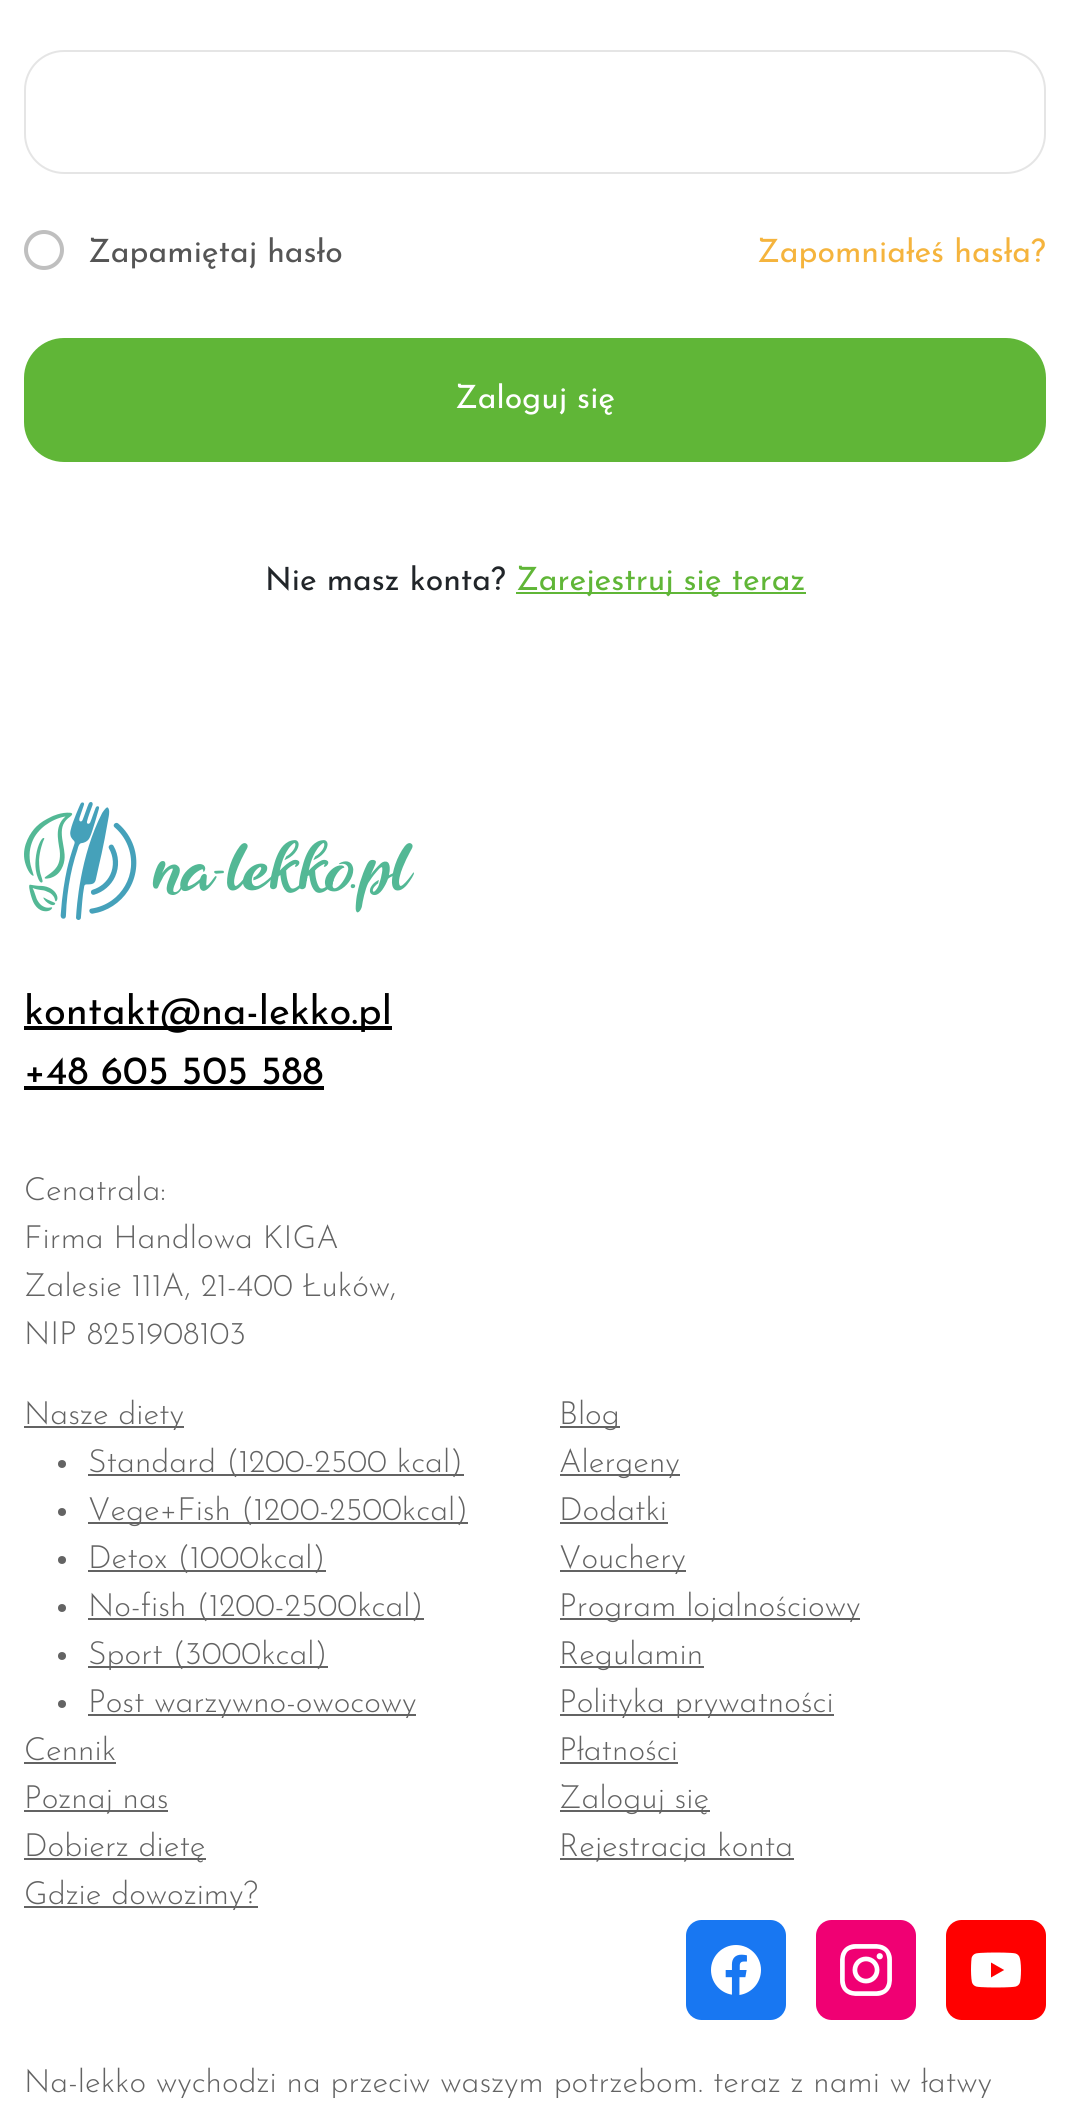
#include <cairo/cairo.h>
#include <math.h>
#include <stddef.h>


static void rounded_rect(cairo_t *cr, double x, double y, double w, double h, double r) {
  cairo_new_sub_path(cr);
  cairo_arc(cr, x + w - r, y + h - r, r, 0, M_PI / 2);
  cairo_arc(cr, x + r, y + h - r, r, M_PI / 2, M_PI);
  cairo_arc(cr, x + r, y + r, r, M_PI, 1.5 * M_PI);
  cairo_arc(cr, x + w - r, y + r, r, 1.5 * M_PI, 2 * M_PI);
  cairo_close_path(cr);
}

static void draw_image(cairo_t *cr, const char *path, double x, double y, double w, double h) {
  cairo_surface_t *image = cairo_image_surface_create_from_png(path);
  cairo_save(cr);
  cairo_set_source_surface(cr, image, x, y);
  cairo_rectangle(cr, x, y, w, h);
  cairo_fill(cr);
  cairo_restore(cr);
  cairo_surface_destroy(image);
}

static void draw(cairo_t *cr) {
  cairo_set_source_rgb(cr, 1, 1, 1);
  cairo_paint(cr);
  rounded_rect(cr, 25, 51, 1020, 122, 39);
  cairo_set_source_rgb(cr, 229 / 255.0, 229 / 255.0, 229 / 255.0);
  cairo_stroke(cr);
  cairo_arc(cr, 44, 250, 18, 0, 2 * M_PI);
  cairo_set_source_rgb(cr, 191 / 255.0, 191 / 255.0, 191 / 255.0);
  cairo_set_line_width(cr, 4);
  cairo_stroke(cr);
  cairo_set_source_rgb(cr, 96 / 255.0, 182 / 255.0, 55 / 255.0);
  rounded_rect(cr, 24, 338, 1022, 124, 40);
  cairo_fill(cr);
  cairo_rectangle(cr, 516, 592, 290, 2);
  cairo_fill(cr);
  draw_image(cr, "images/1.png", 24, 802, 390, 118);
  cairo_set_source_rgb(cr, 0, 0, 0);
  cairo_rectangle(cr, 24, 1026, 368, 4);
  cairo_fill(cr);
  cairo_rectangle(cr, 24, 1086, 300, 4);
  cairo_fill(cr);
  cairo_set_source_rgb(cr, 99 / 255.0, 99 / 255.0, 99 / 255.0);
  cairo_rectangle(cr, 24, 1426, 160, 2);
  cairo_fill(cr);
  cairo_arc(cr, 62, 1464, 4, 0, 2 * M_PI);
  cairo_fill(cr);
  cairo_rectangle(cr, 88, 1474, 376, 2);
  cairo_fill(cr);
  cairo_arc(cr, 62, 1512, 4, 0, 2 * M_PI);
  cairo_fill(cr);
  cairo_rectangle(cr, 88, 1522, 380, 2);
  cairo_fill(cr);
  cairo_arc(cr, 62, 1560, 4, 0, 2 * M_PI);
  cairo_fill(cr);
  cairo_rectangle(cr, 88, 1570, 238, 2);
  cairo_fill(cr);
  cairo_arc(cr, 62, 1608, 4, 0, 2 * M_PI);
  cairo_fill(cr);
  cairo_rectangle(cr, 88, 1618, 336, 2);
  cairo_fill(cr);
  cairo_arc(cr, 62, 1656, 4, 0, 2 * M_PI);
  cairo_fill(cr);
  cairo_rectangle(cr, 88, 1666, 240, 2);
  cairo_fill(cr);
  cairo_arc(cr, 62, 1704, 4, 0, 2 * M_PI);
  cairo_fill(cr);
  cairo_rectangle(cr, 88, 1714, 328, 2);
  cairo_fill(cr);
  cairo_rectangle(cr, 24, 1762, 92, 2);
  cairo_fill(cr);
  cairo_rectangle(cr, 24, 1810, 144, 2);
  cairo_fill(cr);
  cairo_rectangle(cr, 24, 1858, 182, 2);
  cairo_fill(cr);
  cairo_rectangle(cr, 24, 1906, 234, 2);
  cairo_fill(cr);
  cairo_rectangle(cr, 560, 1426, 60, 2);
  cairo_fill(cr);
  cairo_rectangle(cr, 560, 1474, 120, 2);
  cairo_fill(cr);
  cairo_rectangle(cr, 560, 1522, 108, 2);
  cairo_fill(cr);
  cairo_rectangle(cr, 560, 1570, 126, 2);
  cairo_fill(cr);
  cairo_rectangle(cr, 560, 1618, 300, 2);
  cairo_fill(cr);
  cairo_rectangle(cr, 560, 1666, 144, 2);
  cairo_fill(cr);
  cairo_rectangle(cr, 560, 1714, 274, 2);
  cairo_fill(cr);
  cairo_rectangle(cr, 560, 1762, 118, 2);
  cairo_fill(cr);
  cairo_rectangle(cr, 560, 1810, 150, 2);
  cairo_fill(cr);
  cairo_rectangle(cr, 560, 1858, 234, 2);
  cairo_fill(cr);
  draw_image(cr, "images/2.png", 686, 1920, 100, 100);
  draw_image(cr, "images/3.png", 816, 1920, 100, 100);
  draw_image(cr, "images/4.png", 946, 1920, 100, 100);
  cairo_select_font_face(cr, "Josefin Sans", CAIRO_FONT_SLANT_NORMAL, CAIRO_FONT_WEIGHT_NORMAL);
  cairo_set_font_size(cr, 32);
  cairo_set_source_rgb(cr, 85 / 255.0, 85 / 255.0, 85 / 255.0);
  cairo_move_to(cr, 88, 262);
  cairo_show_text(cr, "Zapamiętaj hasło");
  cairo_set_source_rgb(cr, 245 / 255.0, 180 / 255.0, 61 / 255.0);
  cairo_move_to(cr, 757, 262);
  cairo_show_text(cr, "Zapomniałeś hasła?");
  cairo_set_source_rgb(cr, 1, 1, 1);
  cairo_move_to(cr, 455, 408);
  cairo_show_text(cr, "Zaloguj się");
  cairo_set_source_rgb(cr, 33 / 255.0, 37 / 255.0, 41 / 255.0);
  cairo_move_to(cr, 265, 590);
  cairo_show_text(cr, "Nie masz konta?");
  cairo_set_source_rgb(cr, 96 / 255.0, 182 / 255.0, 55 / 255.0);
  cairo_move_to(cr, 516, 590);
  cairo_show_text(cr, "Zarejestruj się teraz");
  cairo_set_font_size(cr, 40);
  cairo_set_source_rgb(cr, 0, 0, 0);
  cairo_move_to(cr, 24, 1024);
  cairo_show_text(cr, "kontakt@na-lekko.pl");
  cairo_move_to(cr, 24, 1084);
  cairo_show_text(cr, "+48 605 505 588");
  cairo_select_font_face(cr, "Josefin Sans Light", CAIRO_FONT_SLANT_NORMAL, CAIRO_FONT_WEIGHT_NORMAL);
  cairo_set_font_size(cr, 32);
  cairo_set_source_rgb(cr, 99 / 255.0, 99 / 255.0, 99 / 255.0);
  cairo_move_to(cr, 24, 1200);
  cairo_show_text(cr, "Cenatrala:");
  cairo_move_to(cr, 24, 1248);
  cairo_show_text(cr, "Firma Handlowa KIGA");
  cairo_move_to(cr, 24, 1296);
  cairo_show_text(cr, "Zalesie 111A, 21-400 Łuków,");
  cairo_move_to(cr, 24, 1344);
  cairo_show_text(cr, "NIP 8251908103");
  cairo_move_to(cr, 24, 1424);
  cairo_show_text(cr, "Nasze diety");
  cairo_move_to(cr, 88, 1472);
  cairo_show_text(cr, "Standard (1200-2500 kcal)");
  cairo_move_to(cr, 88, 1520);
  cairo_show_text(cr, "Vege+Fish (1200-2500kcal)");
  cairo_move_to(cr, 88, 1568);
  cairo_show_text(cr, "Detox (1000kcal)");
  cairo_move_to(cr, 88, 1616);
  cairo_show_text(cr, "No-fish (1200-2500kcal)");
  cairo_move_to(cr, 88, 1664);
  cairo_show_text(cr, "Sport (3000kcal)");
  cairo_move_to(cr, 88, 1712);
  cairo_show_text(cr, "Post warzywno-owocowy");
  cairo_move_to(cr, 24, 1760);
  cairo_show_text(cr, "Cennik");
  cairo_move_to(cr, 24, 1808);
  cairo_show_text(cr, "Poznaj nas");
  cairo_move_to(cr, 24, 1856);
  cairo_show_text(cr, "Dobierz dietę");
  cairo_move_to(cr, 24, 1904);
  cairo_show_text(cr, "Gdzie dowozimy?");
  cairo_move_to(cr, 559, 1424);
  cairo_show_text(cr, "Blog");
  cairo_move_to(cr, 559, 1472);
  cairo_show_text(cr, "Alergeny");
  cairo_move_to(cr, 559, 1520);
  cairo_show_text(cr, "Dodatki");
  cairo_move_to(cr, 559, 1568);
  cairo_show_text(cr, "Vouchery");
  cairo_move_to(cr, 559, 1616);
  cairo_show_text(cr, "Program lojalnościowy");
  cairo_move_to(cr, 559, 1664);
  cairo_show_text(cr, "Regulamin");
  cairo_move_to(cr, 559, 1712);
  cairo_show_text(cr, "Polityka prywatności");
  cairo_move_to(cr, 559, 1760);
  cairo_show_text(cr, "Płatności");
  cairo_move_to(cr, 559, 1808);
  cairo_show_text(cr, "Zaloguj się");
  cairo_move_to(cr, 559, 1856);
  cairo_show_text(cr, "Rejestracja konta");
  cairo_move_to(cr, 24, 2092);
  cairo_show_text(cr, "Na-lekko wychodzi na przeciw waszym potrzebom. teraz z nami w łatwy");
}

int main(void) {
  cairo_surface_t *surface = cairo_image_surface_create(CAIRO_FORMAT_RGB24, 1070, 2111);
  cairo_t *cr = cairo_create(surface);
  cairo_font_options_t *options = cairo_font_options_create();
  cairo_font_options_set_hint_metrics(options, CAIRO_HINT_METRICS_OFF);
  cairo_font_options_set_hint_style(options, CAIRO_HINT_STYLE_NONE);
  cairo_set_font_options(cr, options);
  cairo_set_miter_limit(cr, 4);
  draw(cr);
  cairo_surface_write_to_png(surface, "out.png");
  cairo_font_options_destroy(options);
  cairo_destroy(cr);
  cairo_surface_destroy(surface);
  return 0;
}
